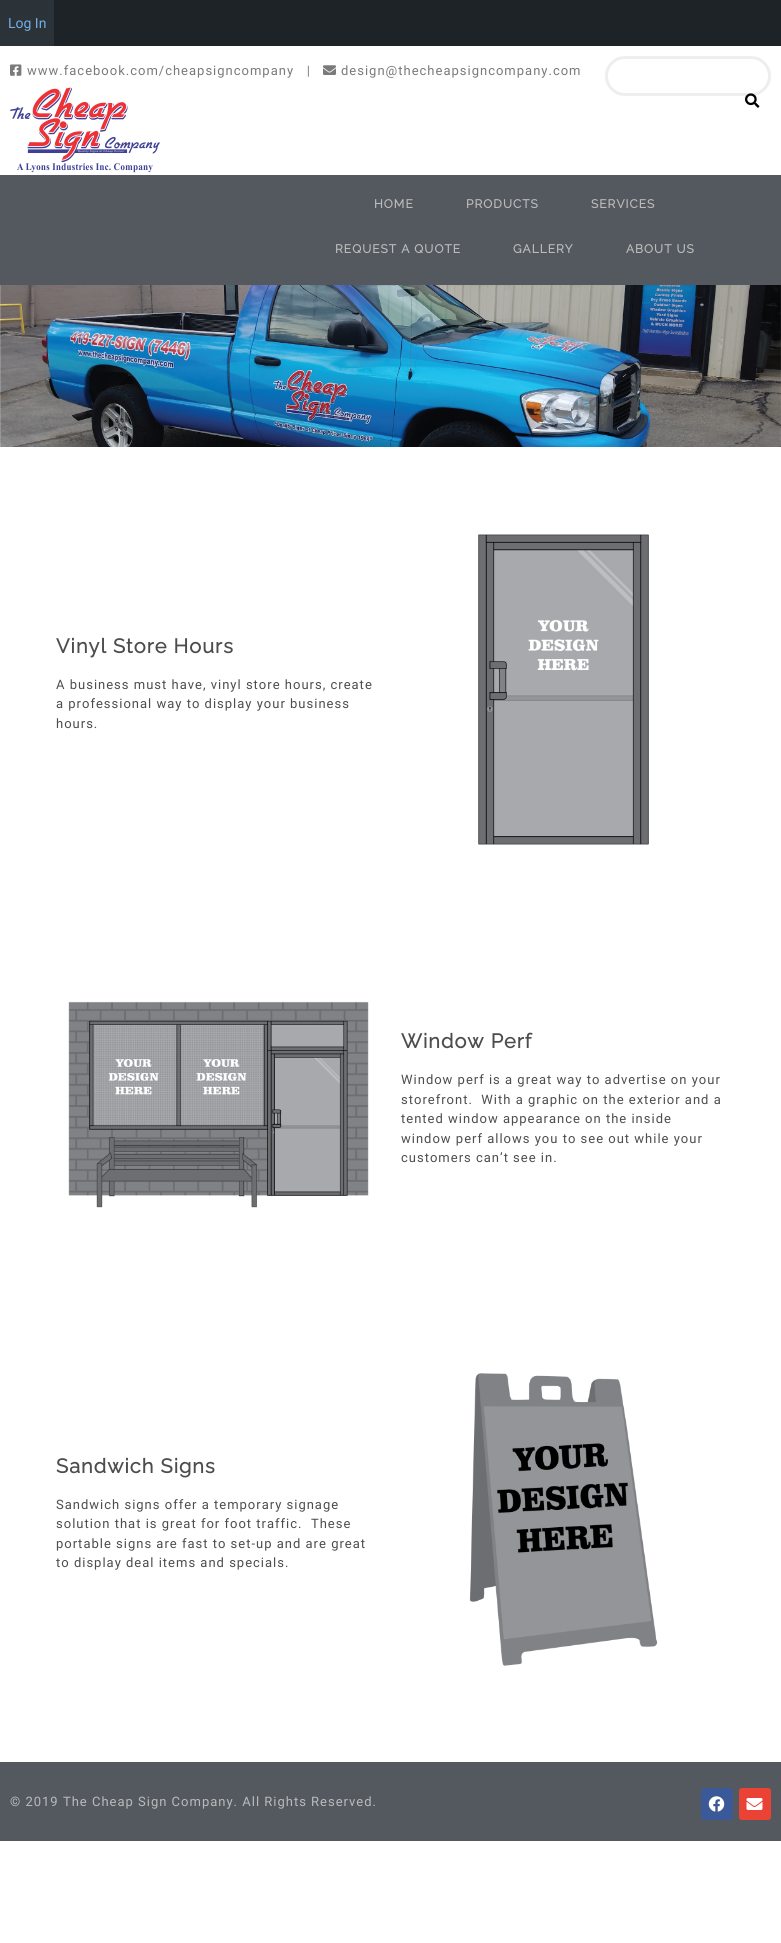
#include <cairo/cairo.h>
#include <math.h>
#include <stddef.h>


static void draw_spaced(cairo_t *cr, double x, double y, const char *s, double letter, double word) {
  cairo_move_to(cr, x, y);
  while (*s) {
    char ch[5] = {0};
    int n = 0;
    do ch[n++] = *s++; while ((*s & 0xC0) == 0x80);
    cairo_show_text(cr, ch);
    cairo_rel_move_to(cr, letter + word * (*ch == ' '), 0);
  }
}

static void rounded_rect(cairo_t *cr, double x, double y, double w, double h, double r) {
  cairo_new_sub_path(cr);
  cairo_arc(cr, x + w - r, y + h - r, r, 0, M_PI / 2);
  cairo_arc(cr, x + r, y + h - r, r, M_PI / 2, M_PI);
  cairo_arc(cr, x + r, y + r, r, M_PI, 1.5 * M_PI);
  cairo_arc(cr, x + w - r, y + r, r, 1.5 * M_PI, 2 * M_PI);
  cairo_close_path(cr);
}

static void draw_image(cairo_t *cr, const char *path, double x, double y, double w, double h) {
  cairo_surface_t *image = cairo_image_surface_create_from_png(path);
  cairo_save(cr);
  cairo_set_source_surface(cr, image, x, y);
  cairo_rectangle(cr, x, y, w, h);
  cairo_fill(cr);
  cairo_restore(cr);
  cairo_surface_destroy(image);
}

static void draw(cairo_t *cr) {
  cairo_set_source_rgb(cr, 1, 1, 1);
  cairo_paint(cr);
  cairo_set_source_rgb(cr, 29 / 255.0, 35 / 255.0, 39 / 255.0);
  cairo_rectangle(cr, 54, 0, 727, 46);
  cairo_fill(cr);
  cairo_set_source_rgb(cr, 44 / 255.0, 51 / 255.0, 56 / 255.0);
  cairo_rectangle(cr, 0, 0, 54, 46);
  cairo_fill(cr);
  draw_image(cr, "images/1.png", 10, 64, 12, 12);
  draw_image(cr, "images/2.png", 323, 65, 13, 10);
  rounded_rect(cr, 606.5, 57.5, 163, 37, 18.5);
  cairo_set_source_rgb(cr, 238 / 255.0, 238 / 255.0, 238 / 255.0);
  cairo_set_line_width(cr, 3);
  cairo_stroke(cr);
  draw_image(cr, "images/3.png", 745, 93, 15, 15);
  draw_image(cr, "images/4.png", 10, 87, 150, 86);
  cairo_set_source_rgb(cr, 84 / 255.0, 89 / 255.0, 95 / 255.0);
  cairo_rectangle(cr, 0, 175, 781, 110);
  cairo_fill(cr);
  draw_image(cr, "images/5.png", 0, 285, 781, 162);
  draw_image(cr, "images/6.png", 478, 534, 171, 311);
  draw_image(cr, "images/7.png", 68, 1001, 301, 207);
  draw_image(cr, "images/8.png", 469, 1373, 189, 293);
  cairo_rectangle(cr, 0, 1762, 781, 79);
  cairo_fill(cr);
  cairo_set_source_rgb(cr, 59 / 255.0, 89 / 255.0, 152 / 255.0);
  rounded_rect(cr, 701, 1788, 32, 32, 3);
  cairo_fill(cr);
  draw_image(cr, "images/9.png", 708, 1796, 17, 16);
  cairo_set_source_rgb(cr, 234 / 255.0, 67 / 255.0, 53 / 255.0);
  rounded_rect(cr, 739, 1788, 32, 32, 3);
  cairo_fill(cr);
  draw_image(cr, "images/10.png", 746, 1798, 17, 12);
  cairo_select_font_face(cr, "Roboto", CAIRO_FONT_SLANT_NORMAL, CAIRO_FONT_WEIGHT_NORMAL);
  cairo_set_font_size(cr, 14);
  cairo_set_source_rgb(cr, 114 / 255.0, 174 / 255.0, 230 / 255.0);
  cairo_move_to(cr, 8, 28);
  cairo_show_text(cr, "Log In");
  cairo_set_font_size(cr, 13);
  cairo_set_source_rgb(cr, 122 / 255.0, 122 / 255.0, 122 / 255.0);
  draw_spaced(cr, 27, 75, "www.facebook.com/cheapsigncompany   |", 1, 0);
  draw_spaced(cr, 341, 75, "design@thecheapsigncompany.com", 1, 0);
  cairo_select_font_face(cr, "Raleway", CAIRO_FONT_SLANT_NORMAL, CAIRO_FONT_WEIGHT_BOLD);
  cairo_set_font_size(cr, 12);
  cairo_set_source_rgb(cr, 186 / 255.0, 186 / 255.0, 186 / 255.0);
  draw_spaced(cr, 374, 208, "HOME", 1, 0);
  draw_spaced(cr, 466, 208, "PRODUCTS", 1, 0);
  draw_spaced(cr, 591, 208, "SERVICES", 1, 0);
  draw_spaced(cr, 335, 253, "REQUEST A QUOTE", 1, 0);
  draw_spaced(cr, 513, 253, "GALLERY", 1, 0);
  draw_spaced(cr, 626, 253, "ABOUT US", 1, 0);
  cairo_set_font_size(cr, 20);
  cairo_set_source_rgb(cr, 77 / 255.0, 77 / 255.0, 77 / 255.0);
  draw_spaced(cr, 56, 653, "Vinyl Store Hours", 1, 0);
  cairo_select_font_face(cr, "Roboto", CAIRO_FONT_SLANT_NORMAL, CAIRO_FONT_WEIGHT_NORMAL);
  cairo_set_font_size(cr, 13);
  draw_spaced(cr, 56, 689, "A business must have, vinyl store hours, create", 1, 0);
  draw_spaced(cr, 56, 708, "a professional way to display your business", 1, 0);
  draw_spaced(cr, 56, 728, "hours.", 1, 0);
  cairo_select_font_face(cr, "Raleway", CAIRO_FONT_SLANT_NORMAL, CAIRO_FONT_WEIGHT_BOLD);
  cairo_set_font_size(cr, 20);
  draw_spaced(cr, 401, 1048, "Window Perf", 1, 0);
  cairo_select_font_face(cr, "Roboto", CAIRO_FONT_SLANT_NORMAL, CAIRO_FONT_WEIGHT_NORMAL);
  cairo_set_font_size(cr, 13);
  draw_spaced(cr, 401, 1084, "Window perf is a great way to advertise on your", 1, 0);
  draw_spaced(cr, 401, 1104, "storefront.  With a graphic on the exterior and a", 1, 0);
  draw_spaced(cr, 401, 1123, "tented window appearance on the inside", 1, 0);
  draw_spaced(cr, 401, 1143, "window perf allows you to see out while your", 1, 0);
  draw_spaced(cr, 401, 1162, "customers can’t see in.", 1, 0);
  cairo_select_font_face(cr, "Raleway", CAIRO_FONT_SLANT_NORMAL, CAIRO_FONT_WEIGHT_BOLD);
  cairo_set_font_size(cr, 20);
  draw_spaced(cr, 56, 1473, "Sandwich Signs", 1, 0);
  cairo_select_font_face(cr, "Roboto", CAIRO_FONT_SLANT_NORMAL, CAIRO_FONT_WEIGHT_NORMAL);
  cairo_set_font_size(cr, 13);
  draw_spaced(cr, 56, 1509, "Sandwich signs offer a temporary signage", 1, 0);
  draw_spaced(cr, 56, 1528, "solution that is great for foot traffic.  These", 1, 0);
  draw_spaced(cr, 56, 1548, "portable signs are fast to set-up and are great", 1, 0);
  draw_spaced(cr, 56, 1567, "to display deal items and specials.", 1, 0);
  cairo_set_source_rgb(cr, 186 / 255.0, 186 / 255.0, 186 / 255.0);
  draw_spaced(cr, 10, 1806, "© 2019 The Cheap Sign Company. All Rights Reserved.", 1, 0);
}

int main(void) {
  cairo_surface_t *surface = cairo_image_surface_create(CAIRO_FORMAT_RGB24, 781, 1943);
  cairo_t *cr = cairo_create(surface);
  cairo_font_options_t *options = cairo_font_options_create();
  cairo_font_options_set_hint_metrics(options, CAIRO_HINT_METRICS_OFF);
  cairo_font_options_set_hint_style(options, CAIRO_HINT_STYLE_NONE);
  cairo_set_font_options(cr, options);
  cairo_set_miter_limit(cr, 4);
  draw(cr);
  cairo_surface_write_to_png(surface, "out.png");
  cairo_font_options_destroy(options);
  cairo_destroy(cr);
  cairo_surface_destroy(surface);
  return 0;
}
